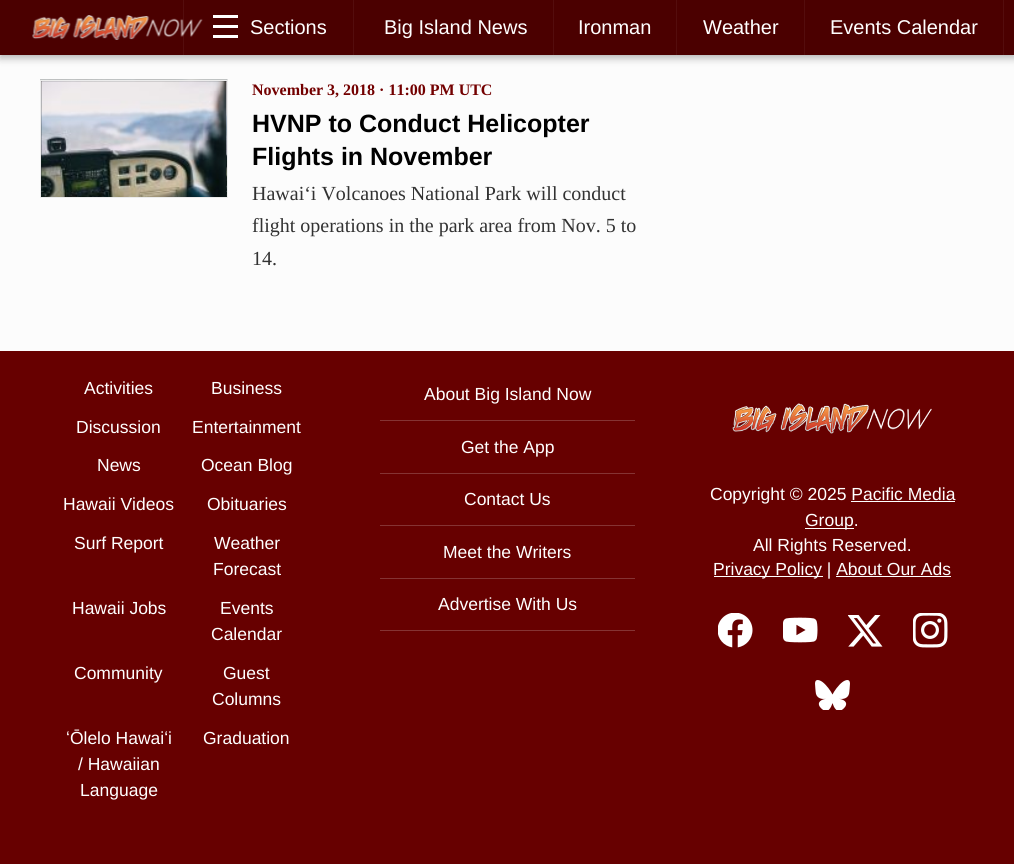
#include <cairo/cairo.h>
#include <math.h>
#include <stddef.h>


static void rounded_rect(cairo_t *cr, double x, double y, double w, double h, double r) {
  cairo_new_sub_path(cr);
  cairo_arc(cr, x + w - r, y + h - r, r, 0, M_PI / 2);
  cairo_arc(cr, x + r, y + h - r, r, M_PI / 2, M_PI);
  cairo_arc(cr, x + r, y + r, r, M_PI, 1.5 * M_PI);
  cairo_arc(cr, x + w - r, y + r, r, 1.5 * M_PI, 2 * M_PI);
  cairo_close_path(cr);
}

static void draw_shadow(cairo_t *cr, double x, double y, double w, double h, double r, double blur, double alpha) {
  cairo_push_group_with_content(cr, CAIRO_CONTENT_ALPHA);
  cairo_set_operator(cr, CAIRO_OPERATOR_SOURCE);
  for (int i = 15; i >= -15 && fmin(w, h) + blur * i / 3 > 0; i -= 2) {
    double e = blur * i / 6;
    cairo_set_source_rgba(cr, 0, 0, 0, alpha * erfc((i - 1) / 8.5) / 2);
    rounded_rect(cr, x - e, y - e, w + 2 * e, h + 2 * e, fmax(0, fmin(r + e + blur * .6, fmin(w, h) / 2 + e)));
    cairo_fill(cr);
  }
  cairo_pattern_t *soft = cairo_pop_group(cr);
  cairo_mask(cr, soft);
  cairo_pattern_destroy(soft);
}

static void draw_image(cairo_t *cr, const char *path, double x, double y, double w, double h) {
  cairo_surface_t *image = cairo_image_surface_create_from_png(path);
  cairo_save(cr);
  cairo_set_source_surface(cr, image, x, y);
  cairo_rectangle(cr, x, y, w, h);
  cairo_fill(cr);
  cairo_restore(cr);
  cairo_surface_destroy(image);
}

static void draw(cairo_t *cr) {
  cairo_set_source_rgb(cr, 252 / 255.0, 252 / 255.0, 252 / 255.0);
  cairo_paint(cr);
  cairo_set_source_rgb(cr, 0, 0, 0);
  draw_shadow(cr, 0, 3, 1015, 55, 0, 4, 0.3);
  cairo_set_source_rgb(cr, 75 / 255.0, 0, 0);
  cairo_rectangle(cr, 0, 0, 1014, 55);
  cairo_fill(cr);
  cairo_set_source_rgb(cr, 84 / 255.0, 13 / 255.0, 13 / 255.0);
  cairo_rectangle(cr, 183, 0, 1, 55);
  cairo_fill(cr);
  draw_image(cr, "images/1.png", 32, 15, 171, 25);
  cairo_rectangle(cr, 353, 0, 1, 55);
  cairo_fill(cr);
  cairo_set_source_rgb(cr, 1, 1, 1);
  cairo_rectangle(cr, 213, 15, 25, 3);
  cairo_fill(cr);
  cairo_rectangle(cr, 213, 25, 25, 3);
  cairo_fill(cr);
  cairo_rectangle(cr, 213, 35, 25, 3);
  cairo_fill(cr);
  cairo_set_source_rgb(cr, 84 / 255.0, 13 / 255.0, 13 / 255.0);
  cairo_rectangle(cr, 553, 0, 1, 55);
  cairo_fill(cr);
  cairo_rectangle(cr, 676, 0, 1, 55);
  cairo_fill(cr);
  cairo_rectangle(cr, 804, 0, 1, 55);
  cairo_fill(cr);
  cairo_rectangle(cr, 1003, 0, 1, 55);
  cairo_fill(cr);
  draw_image(cr, "images/2.png", 40, 79, 188, 118);
  cairo_rectangle(cr, 40.5, 80.5, 187, 117);
  cairo_set_source_rgb(cr, 236 / 255.0, 236 / 255.0, 236 / 255.0);
  cairo_set_line_width(cr, 1);
  cairo_stroke(cr);
  cairo_set_source_rgb(cr, 103 / 255.0, 0, 0);
  cairo_rectangle(cr, 0, 351, 1014, 513);
  cairo_fill(cr);
  cairo_set_source_rgb(cr, 133 / 255.0, 51 / 255.0, 51 / 255.0);
  cairo_rectangle(cr, 380, 420, 255, 1);
  cairo_fill(cr);
  cairo_rectangle(cr, 380, 473, 255, 1);
  cairo_fill(cr);
  cairo_rectangle(cr, 380, 525, 255, 1);
  cairo_fill(cr);
  cairo_rectangle(cr, 380, 578, 255, 1);
  cairo_fill(cr);
  cairo_rectangle(cr, 380, 630, 255, 1);
  cairo_fill(cr);
  draw_image(cr, "images/3.png", 732, 403, 200, 31);
  cairo_set_source_rgb(cr, 1, 1, 1);
  cairo_rectangle(cr, 851, 501, 104, 1);
  cairo_fill(cr);
  cairo_rectangle(cr, 805, 528, 49, 1);
  cairo_fill(cr);
  cairo_rectangle(cr, 714, 576, 109, 1);
  cairo_fill(cr);
  cairo_rectangle(cr, 836, 576, 115, 1);
  cairo_fill(cr);
  draw_image(cr, "images/4.png", 718, 613, 35, 35);
  draw_image(cr, "images/5.png", 783, 617, 35, 26);
  draw_image(cr, "images/6.png", 848, 615, 35, 32);
  draw_image(cr, "images/7.png", 913, 613, 35, 35);
  draw_image(cr, "images/8.png", 815, 680, 35, 30);
  cairo_select_font_face(cr, "Liberation Sans", CAIRO_FONT_SLANT_NORMAL, CAIRO_FONT_WEIGHT_NORMAL);
  cairo_set_font_size(cr, 20);
  cairo_move_to(cr, 250, 34);
  cairo_show_text(cr, "Sections");
  cairo_move_to(cr, 384, 34);
  cairo_show_text(cr, "Big Island News");
  cairo_move_to(cr, 578, 34);
  cairo_show_text(cr, "Ironman");
  cairo_move_to(cr, 703, 34);
  cairo_show_text(cr, "Weather");
  cairo_move_to(cr, 830, 34);
  cairo_show_text(cr, "Events Calendar");
  cairo_select_font_face(cr, "Liberation Serif", CAIRO_FONT_SLANT_NORMAL, CAIRO_FONT_WEIGHT_BOLD);
  cairo_set_font_size(cr, 16);
  cairo_set_source_rgb(cr, 115 / 255.0, 0, 0);
  cairo_move_to(cr, 252, 95);
  cairo_show_text(cr, "November 3, 2018 · 11:00 PM UTC");
  cairo_select_font_face(cr, "Liberation Sans", CAIRO_FONT_SLANT_NORMAL, CAIRO_FONT_WEIGHT_BOLD);
  cairo_set_font_size(cr, 25);
  cairo_set_source_rgb(cr, 0, 0, 0);
  cairo_move_to(cr, 252, 132);
  cairo_show_text(cr, "HVNP to Conduct Helicopter");
  cairo_move_to(cr, 252, 165);
  cairo_show_text(cr, "Flights in November");
  cairo_select_font_face(cr, "Liberation Serif", CAIRO_FONT_SLANT_NORMAL, CAIRO_FONT_WEIGHT_NORMAL);
  cairo_set_font_size(cr, 20);
  cairo_set_source_rgb(cr, 50 / 255.0, 50 / 255.0, 50 / 255.0);
  cairo_move_to(cr, 252, 200);
  cairo_show_text(cr, "Hawai‘i Volcanoes National Park will conduct");
  cairo_move_to(cr, 252, 232);
  cairo_show_text(cr, "flight operations in the park area from Nov. 5 to");
  cairo_move_to(cr, 252, 265);
  cairo_show_text(cr, "14.");
  cairo_select_font_face(cr, "Liberation Sans", CAIRO_FONT_SLANT_NORMAL, CAIRO_FONT_WEIGHT_NORMAL);
  cairo_set_font_size(cr, 17.5);
  cairo_set_source_rgb(cr, 1, 1, 1);
  cairo_move_to(cr, 84, 394);
  cairo_show_text(cr, "Activities");
  cairo_move_to(cr, 211, 394);
  cairo_show_text(cr, "Business");
  cairo_move_to(cr, 76, 433);
  cairo_show_text(cr, "Discussion");
  cairo_move_to(cr, 192, 433);
  cairo_show_text(cr, "Entertainment");
  cairo_move_to(cr, 97, 471);
  cairo_show_text(cr, "News");
  cairo_move_to(cr, 201, 471);
  cairo_show_text(cr, "Ocean Blog");
  cairo_move_to(cr, 63, 510);
  cairo_show_text(cr, "Hawaii Videos");
  cairo_move_to(cr, 207, 510);
  cairo_show_text(cr, "Obituaries");
  cairo_move_to(cr, 74, 549);
  cairo_show_text(cr, "Surf Report");
  cairo_move_to(cr, 214, 549);
  cairo_show_text(cr, "Weather");
  cairo_move_to(cr, 213, 575);
  cairo_show_text(cr, "Forecast");
  cairo_move_to(cr, 72, 614);
  cairo_show_text(cr, "Hawaii Jobs");
  cairo_move_to(cr, 220, 614);
  cairo_show_text(cr, "Events");
  cairo_move_to(cr, 211, 640);
  cairo_show_text(cr, "Calendar");
  cairo_move_to(cr, 74, 679);
  cairo_show_text(cr, "Community");
  cairo_move_to(cr, 223, 679);
  cairo_show_text(cr, "Guest");
  cairo_move_to(cr, 212, 705);
  cairo_show_text(cr, "Columns");
  cairo_move_to(cr, 66, 744);
  cairo_show_text(cr, "ʻŌlelo Hawaiʻi");
  cairo_move_to(cr, 78, 770);
  cairo_show_text(cr, "/ Hawaiian");
  cairo_move_to(cr, 80, 796);
  cairo_show_text(cr, "Language");
  cairo_move_to(cr, 203, 744);
  cairo_show_text(cr, "Graduation");
  cairo_move_to(cr, 424, 400);
  cairo_show_text(cr, "About Big Island Now");
  cairo_move_to(cr, 461, 453);
  cairo_show_text(cr, "Get the App");
  cairo_move_to(cr, 464, 505);
  cairo_show_text(cr, "Contact Us");
  cairo_move_to(cr, 443, 558);
  cairo_show_text(cr, "Meet the Writers");
  cairo_move_to(cr, 438, 610);
  cairo_show_text(cr, "Advertise With Us");
  cairo_move_to(cr, 710, 500);
  cairo_show_text(cr, "Copyright © 2025 Pacific Media");
  cairo_move_to(cr, 805, 526);
  cairo_show_text(cr, "Group.");
  cairo_move_to(cr, 753, 551);
  cairo_show_text(cr, "All Rights Reserved.");
  cairo_move_to(cr, 713, 575);
  cairo_show_text(cr, "Privacy Policy | About Our Ads");
}

int main(void) {
  cairo_surface_t *surface = cairo_image_surface_create(CAIRO_FORMAT_RGB24, 1014, 864);
  cairo_t *cr = cairo_create(surface);
  cairo_font_options_t *options = cairo_font_options_create();
  cairo_font_options_set_hint_metrics(options, CAIRO_HINT_METRICS_OFF);
  cairo_font_options_set_hint_style(options, CAIRO_HINT_STYLE_NONE);
  cairo_set_font_options(cr, options);
  cairo_set_miter_limit(cr, 4);
  draw(cr);
  cairo_surface_write_to_png(surface, "out.png");
  cairo_font_options_destroy(options);
  cairo_destroy(cr);
  cairo_surface_destroy(surface);
  return 0;
}
